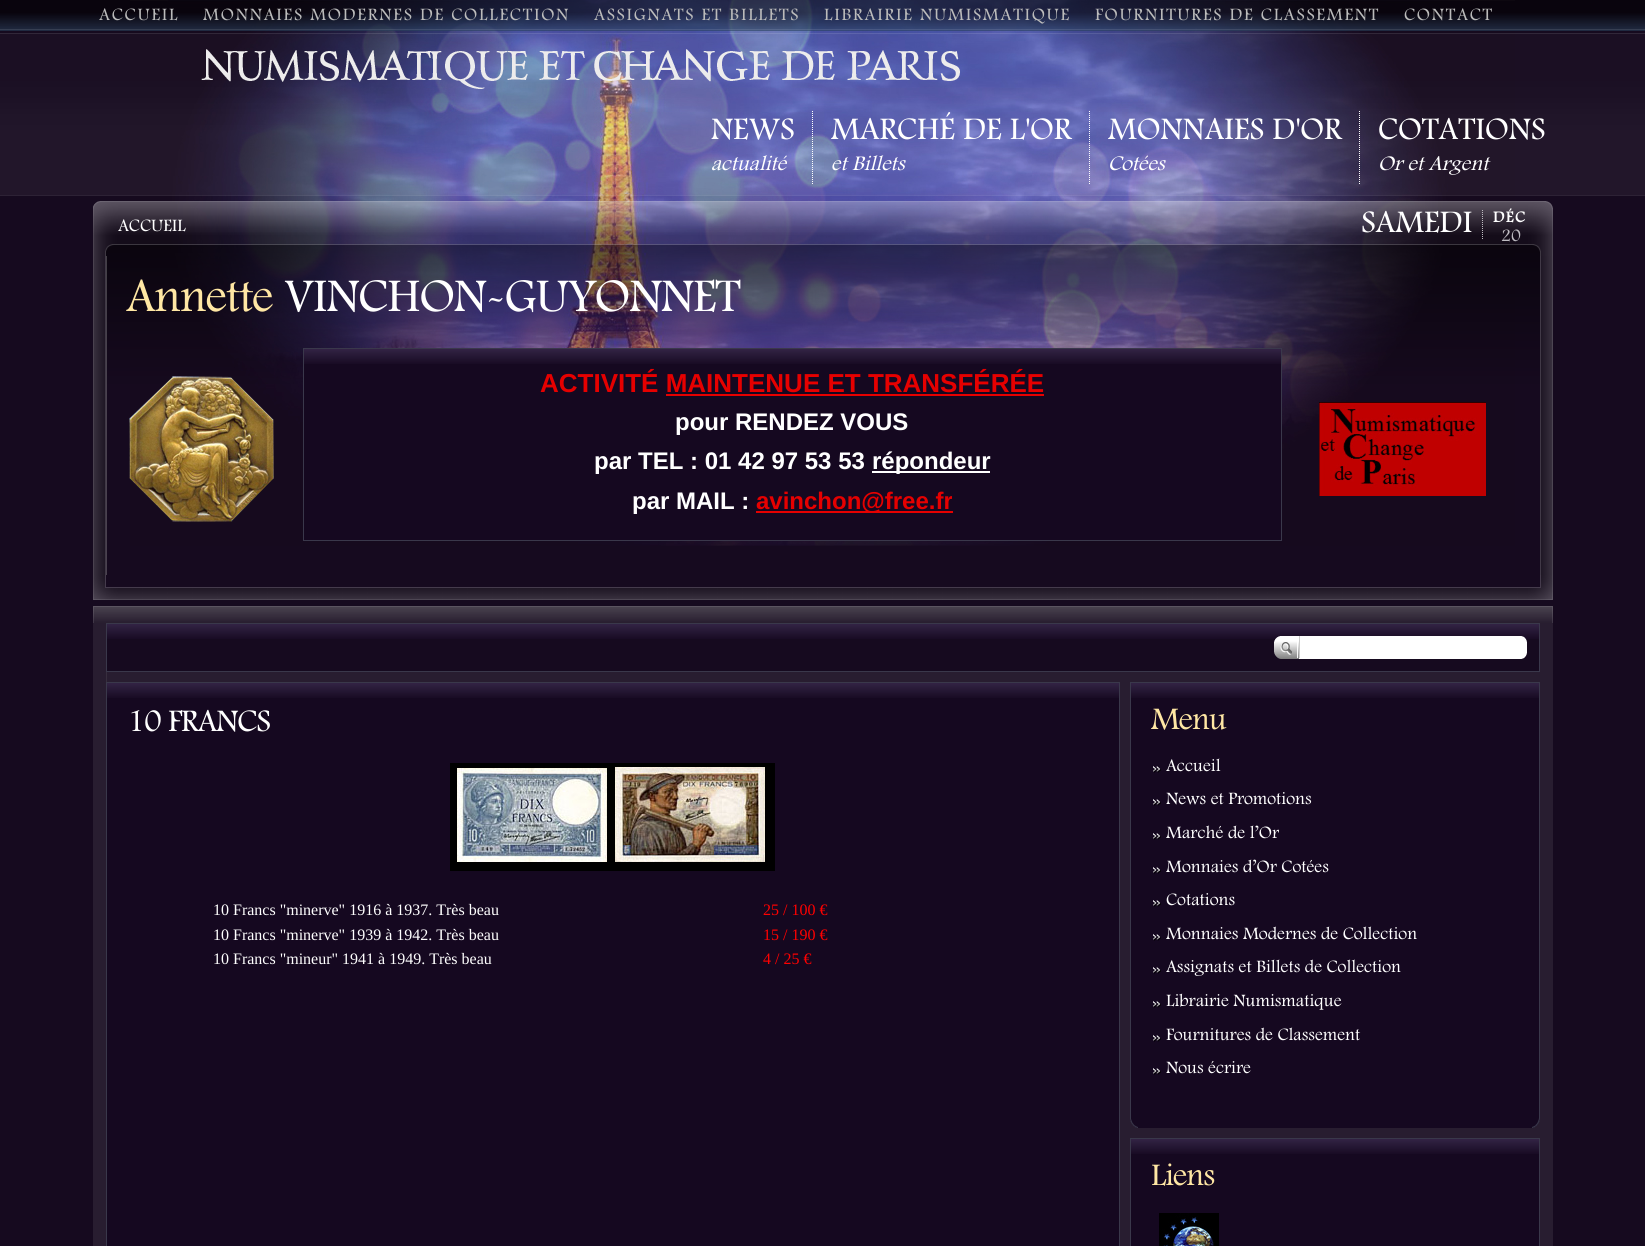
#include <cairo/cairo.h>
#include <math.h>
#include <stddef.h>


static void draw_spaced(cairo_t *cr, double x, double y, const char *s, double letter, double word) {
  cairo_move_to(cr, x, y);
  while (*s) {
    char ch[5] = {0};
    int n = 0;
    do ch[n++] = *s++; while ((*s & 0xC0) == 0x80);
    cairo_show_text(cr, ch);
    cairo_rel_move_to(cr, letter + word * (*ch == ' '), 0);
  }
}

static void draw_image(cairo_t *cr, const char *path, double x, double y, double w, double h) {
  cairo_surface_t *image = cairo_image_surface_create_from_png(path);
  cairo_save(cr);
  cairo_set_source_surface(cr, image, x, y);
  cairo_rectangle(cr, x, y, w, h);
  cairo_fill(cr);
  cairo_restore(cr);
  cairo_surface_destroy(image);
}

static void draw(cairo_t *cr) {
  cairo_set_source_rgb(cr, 22 / 255.0, 10 / 255.0, 31 / 255.0);
  cairo_paint(cr);
  cairo_set_source_rgb(cr, 40 / 255.0, 29 / 255.0, 48 / 255.0);
  cairo_rectangle(cr, 93, 623, 13, 623);
  cairo_fill(cr);
  draw_image(cr, "images/1.png", 130, 0, 1385, 546);
  draw_image(cr, "images/2.png", 0, 0, 1645, 31);
  draw_image(cr, "images/3.png", 0, 33, 1645, 162);
  draw_image(cr, "images/4.png", 201, 49, 759, 40);
  cairo_new_path(cr);
  cairo_move_to(cr, 812.5, 111);
  cairo_line_to(cr, 812.5, 185);
  cairo_set_source_rgb(cr, 1, 1, 1);
  cairo_set_line_width(cr, 1);
  cairo_set_dash(cr, (double[]){1, 1}, 2, 0);
  cairo_stroke(cr);
  cairo_new_path(cr);
  cairo_move_to(cr, 1089.5, 111);
  cairo_line_to(cr, 1089.5, 185);
  cairo_stroke(cr);
  cairo_new_path(cr);
  cairo_move_to(cr, 1359.5, 111);
  cairo_line_to(cr, 1359.5, 185);
  cairo_stroke(cr);
  cairo_set_source_rgba(cr, 1, 1, 1, 0.1);
  cairo_rectangle(cr, 0, 195, 1645, 1);
  cairo_fill(cr);
  draw_image(cr, "images/5.png", 93, 201, 25, 55);
  draw_image(cr, "images/6.png", 118, 201, 1410, 55);
  cairo_new_path(cr);
  cairo_move_to(cr, 1482.5, 210);
  cairo_line_to(cr, 1482.5, 239);
  cairo_set_source_rgb(cr, 191 / 255.0, 188 / 255.0, 194 / 255.0);
  cairo_stroke(cr);
  draw_image(cr, "images/7.png", 1528, 201, 25, 55);
  draw_image(cr, "images/8.png", 106, 256, 1434, 128);
  draw_image(cr, "images/9.png", 93, 256, 14, 319);
  draw_image(cr, "images/10.png", 1540, 256, 13, 319);
  draw_image(cr, "images/11.png", 129, 376, 145, 146);
  cairo_set_source_rgb(cr, 21 / 255.0, 8 / 255.0, 32 / 255.0);
  cairo_rectangle(cr, 304, 364, 977, 176);
  cairo_fill(cr);
  draw_image(cr, "images/12.png", 304, 349, 977, 15);
  cairo_rectangle(cr, 303.5, 348.5, 978, 192);
  cairo_set_source_rgb(cr, 58 / 255.0, 56 / 255.0, 75 / 255.0);
  cairo_set_dash(cr, NULL, 0, 0);
  cairo_stroke(cr);
  cairo_set_source_rgb(cr, 230 / 255.0, 0, 0);
  cairo_rectangle(cr, 666, 394, 378, 2);
  cairo_fill(cr);
  cairo_set_source_rgb(cr, 1, 1, 1);
  cairo_rectangle(cr, 872, 471, 118, 2);
  cairo_fill(cr);
  cairo_set_source_rgb(cr, 230 / 255.0, 0, 0);
  cairo_rectangle(cr, 756, 511, 197, 2);
  cairo_fill(cr);
  draw_image(cr, "images/13.png", 1319, 402, 167, 94);
  draw_image(cr, "images/14.png", 93, 575, 25, 25);
  draw_image(cr, "images/15.png", 118, 587, 1410, 13);
  draw_image(cr, "images/16.png", 1528, 575, 25, 25);
  draw_image(cr, "images/17.png", 93, 606, 13, 17);
  draw_image(cr, "images/18.png", 106, 606, 1434, 17);
  draw_image(cr, "images/19.png", 1540, 606, 13, 17);
  cairo_set_source_rgb(cr, 40 / 255.0, 29 / 255.0, 48 / 255.0);
  cairo_rectangle(cr, 107, 672, 1433, 574);
  cairo_fill(cr);
  cairo_set_source_rgb(cr, 55 / 255.0, 46 / 255.0, 62 / 255.0);
  cairo_rectangle(cr, 106, 672, 1, 10);
  cairo_fill(cr);
  cairo_set_source_rgb(cr, 40 / 255.0, 29 / 255.0, 48 / 255.0);
  cairo_rectangle(cr, 1540, 623, 13, 623);
  cairo_fill(cr);
  draw_image(cr, "images/20.png", 107, 624, 1432, 15);
  cairo_rectangle(cr, 106.5, 623.5, 1433, 48);
  cairo_set_source_rgb(cr, 58 / 255.0, 56 / 255.0, 75 / 255.0);
  cairo_stroke(cr);
  draw_image(cr, "images/21.png", 1274, 636, 253, 23);
  cairo_set_source_rgb(cr, 21 / 255.0, 8 / 255.0, 32 / 255.0);
  cairo_rectangle(cr, 107, 698, 1012, 548);
  cairo_fill(cr);
  draw_image(cr, "images/22.png", 107, 683, 1012, 15);
  cairo_set_source_rgb(cr, 58 / 255.0, 56 / 255.0, 75 / 255.0);
  cairo_rectangle(cr, 106, 682, 1014, 1);
  cairo_fill(cr);
  cairo_rectangle(cr, 1119, 682, 1, 564);
  cairo_fill(cr);
  cairo_rectangle(cr, 106, 682, 1, 564);
  cairo_fill(cr);
  draw_image(cr, "images/23.png", 450, 763, 325, 108);
  cairo_set_source_rgb(cr, 21 / 255.0, 8 / 255.0, 32 / 255.0);
  cairo_rectangle(cr, 1131, 698, 408, 420);
  cairo_fill(cr);
  draw_image(cr, "images/24.png", 1131, 683, 408, 15);
  cairo_set_source_rgb(cr, 58 / 255.0, 56 / 255.0, 75 / 255.0);
  cairo_rectangle(cr, 1130, 682, 410, 1);
  cairo_fill(cr);
  cairo_rectangle(cr, 1539, 682, 1, 436);
  cairo_fill(cr);
  cairo_rectangle(cr, 1130, 682, 1, 436);
  cairo_fill(cr);
  draw_image(cr, "images/25.png", 1153, 766, 8, 7);
  draw_image(cr, "images/25.png", 1153, 799, 8, 7);
  draw_image(cr, "images/25.png", 1153, 833, 8, 7);
  draw_image(cr, "images/25.png", 1153, 867, 8, 7);
  draw_image(cr, "images/25.png", 1153, 900, 8, 7);
  draw_image(cr, "images/25.png", 1153, 934, 8, 7);
  draw_image(cr, "images/25.png", 1153, 967, 8, 7);
  draw_image(cr, "images/25.png", 1153, 1001, 8, 7);
  draw_image(cr, "images/25.png", 1153, 1035, 8, 7);
  draw_image(cr, "images/25.png", 1153, 1068, 8, 7);
  draw_image(cr, "images/26.png", 1130, 1118, 8, 10);
  cairo_set_source_rgb(cr, 21 / 255.0, 8 / 255.0, 32 / 255.0);
  cairo_rectangle(cr, 1138, 1118, 394, 10);
  cairo_fill(cr);
  draw_image(cr, "images/27.png", 1532, 1118, 8, 10);
  cairo_rectangle(cr, 1131, 1154, 408, 92);
  cairo_fill(cr);
  draw_image(cr, "images/24.png", 1131, 1139, 408, 15);
  cairo_set_source_rgb(cr, 58 / 255.0, 56 / 255.0, 75 / 255.0);
  cairo_rectangle(cr, 1130, 1138, 410, 1);
  cairo_fill(cr);
  cairo_rectangle(cr, 1539, 1138, 1, 108);
  cairo_fill(cr);
  cairo_rectangle(cr, 1130, 1138, 1, 108);
  cairo_fill(cr);
  draw_image(cr, "images/28.png", 1159, 1213, 60, 33);
  cairo_select_font_face(cr, "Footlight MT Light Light", CAIRO_FONT_SLANT_NORMAL, CAIRO_FONT_WEIGHT_NORMAL);
  cairo_set_font_size(cr, 18);
  cairo_set_source_rgb(cr, 187 / 255.0, 187 / 255.0, 187 / 255.0);
  draw_spaced(cr, 99, 20, "ACCUEIL", 1.8, 0);
  draw_spaced(cr, 203, 20, "MONNAIES MODERNES DE COLLECTION", 1.8, 0);
  draw_spaced(cr, 594, 20, "ASSIGNATS ET BILLETS", 1.8, 0);
  draw_spaced(cr, 824, 20, "LIBRAIRIE NUMISMATIQUE", 1.8, 0);
  draw_spaced(cr, 1095, 20, "FOURNITURES DE CLASSEMENT", 1.8, 0);
  draw_spaced(cr, 1404, 20, "CONTACT", 1.8, 0);
  cairo_set_font_size(cr, 32.5);
  cairo_set_source_rgb(cr, 1, 1, 1);
  cairo_move_to(cr, 711, 139);
  cairo_show_text(cr, "NEWS");
  cairo_select_font_face(cr, "Footlight MT Light Light", CAIRO_FONT_SLANT_ITALIC, CAIRO_FONT_WEIGHT_NORMAL);
  cairo_set_font_size(cr, 21.5);
  cairo_move_to(cr, 711, 170);
  cairo_show_text(cr, "actualité");
  cairo_select_font_face(cr, "Footlight MT Light Light", CAIRO_FONT_SLANT_NORMAL, CAIRO_FONT_WEIGHT_NORMAL);
  cairo_set_font_size(cr, 32.5);
  cairo_move_to(cr, 831, 139);
  cairo_show_text(cr, "MARCHÉ DE L'OR");
  cairo_select_font_face(cr, "Footlight MT Light Light", CAIRO_FONT_SLANT_ITALIC, CAIRO_FONT_WEIGHT_NORMAL);
  cairo_set_font_size(cr, 21.5);
  cairo_move_to(cr, 831, 170);
  cairo_show_text(cr, "et Billets");
  cairo_select_font_face(cr, "Footlight MT Light Light", CAIRO_FONT_SLANT_NORMAL, CAIRO_FONT_WEIGHT_NORMAL);
  cairo_set_font_size(cr, 32.5);
  cairo_move_to(cr, 1108, 139);
  cairo_show_text(cr, "MONNAIES D'OR");
  cairo_select_font_face(cr, "Footlight MT Light Light", CAIRO_FONT_SLANT_ITALIC, CAIRO_FONT_WEIGHT_NORMAL);
  cairo_set_font_size(cr, 21.5);
  cairo_move_to(cr, 1108, 170);
  cairo_show_text(cr, "Cotées");
  cairo_select_font_face(cr, "Footlight MT Light Light", CAIRO_FONT_SLANT_NORMAL, CAIRO_FONT_WEIGHT_NORMAL);
  cairo_set_font_size(cr, 32.5);
  cairo_move_to(cr, 1378, 139);
  cairo_show_text(cr, "COTATIONS");
  cairo_select_font_face(cr, "Footlight MT Light Light", CAIRO_FONT_SLANT_ITALIC, CAIRO_FONT_WEIGHT_NORMAL);
  cairo_set_font_size(cr, 21.5);
  cairo_move_to(cr, 1378, 170);
  cairo_show_text(cr, "Or et Argent");
  cairo_select_font_face(cr, "Footlight MT Light Light", CAIRO_FONT_SLANT_NORMAL, CAIRO_FONT_WEIGHT_NORMAL);
  cairo_set_font_size(cr, 18);
  cairo_move_to(cr, 118, 231);
  cairo_show_text(cr, "ACCUEIL");
  cairo_set_font_size(cr, 32.5);
  cairo_move_to(cr, 1361, 232);
  cairo_show_text(cr, "SAMEDI");
  cairo_select_font_face(cr, "Footlight MT Light", CAIRO_FONT_SLANT_NORMAL, CAIRO_FONT_WEIGHT_BOLD);
  cairo_set_font_size(cr, 16);
  draw_spaced(cr, 1493, 222, "DÉC", 1.5, 0);
  cairo_select_font_face(cr, "Footlight MT Light Light", CAIRO_FONT_SLANT_NORMAL, CAIRO_FONT_WEIGHT_NORMAL);
  cairo_set_font_size(cr, 18);
  cairo_set_source_rgb(cr, 191 / 255.0, 188 / 255.0, 194 / 255.0);
  cairo_move_to(cr, 1501, 241);
  cairo_show_text(cr, "20");
  cairo_set_font_size(cr, 48.5);
  cairo_set_source_rgb(cr, 1, 231 / 255.0, 164 / 255.0);
  draw_spaced(cr, 126, 311, "Annette", -1, 0);
  cairo_set_source_rgb(cr, 1, 1, 1);
  draw_spaced(cr, 284, 311, "VINCHON-GUYONNET", -1, 0);
  cairo_select_font_face(cr, "Liberation Sans", CAIRO_FONT_SLANT_NORMAL, CAIRO_FONT_WEIGHT_BOLD);
  cairo_set_font_size(cr, 26);
  cairo_set_source_rgb(cr, 230 / 255.0, 0, 0);
  cairo_move_to(cr, 540, 392);
  cairo_show_text(cr, "ACTIVITÉ MAINTENUE ET TRANSFÉRÉE");
  cairo_set_font_size(cr, 24);
  cairo_set_source_rgb(cr, 1, 1, 1);
  cairo_move_to(cr, 675, 430);
  cairo_show_text(cr, "pour RENDEZ VOUS");
  cairo_move_to(cr, 594, 469);
  cairo_show_text(cr, "par TEL : 01 42 97 53 53");
  cairo_move_to(cr, 872, 469);
  cairo_show_text(cr, "répondeur");
  cairo_move_to(cr, 632, 509);
  cairo_show_text(cr, "par MAIL :");
  cairo_set_source_rgb(cr, 230 / 255.0, 0, 0);
  cairo_move_to(cr, 756, 509);
  cairo_show_text(cr, "avinchon@free.fr");
  cairo_select_font_face(cr, "Footlight MT Light Light", CAIRO_FONT_SLANT_NORMAL, CAIRO_FONT_WEIGHT_NORMAL);
  cairo_set_font_size(cr, 32.5);
  cairo_set_source_rgb(cr, 1, 1, 1);
  draw_spaced(cr, 127, 731, "10 FRANCS", -1, 0);
  cairo_select_font_face(cr, "Liberation Serif", CAIRO_FONT_SLANT_NORMAL, CAIRO_FONT_WEIGHT_NORMAL);
  cairo_set_font_size(cr, 16);
  cairo_move_to(cr, 213, 915);
  cairo_show_text(cr, "10 Francs \"minerve\" 1916 à 1937. Très beau");
  cairo_move_to(cr, 213, 940);
  cairo_show_text(cr, "10 Francs \"minerve\" 1939 à 1942. Très beau");
  cairo_move_to(cr, 213, 964);
  cairo_show_text(cr, "10 Francs \"mineur\" 1941 à 1949. Très beau");
  cairo_set_source_rgb(cr, 1, 0, 0);
  cairo_move_to(cr, 763, 915);
  cairo_show_text(cr, "25 / 100 €");
  cairo_move_to(cr, 763, 940);
  cairo_show_text(cr, "15 / 190 €");
  cairo_move_to(cr, 763, 964);
  cairo_show_text(cr, "4 / 25 €");
  cairo_select_font_face(cr, "Footlight MT Light Light", CAIRO_FONT_SLANT_NORMAL, CAIRO_FONT_WEIGHT_NORMAL);
  cairo_set_font_size(cr, 32.5);
  cairo_set_source_rgb(cr, 1, 231 / 255.0, 164 / 255.0);
  draw_spaced(cr, 1151, 729, "Menu", -1, 0);
  cairo_set_font_size(cr, 18);
  cairo_set_source_rgb(cr, 1, 1, 1);
  cairo_move_to(cr, 1166, 771);
  cairo_show_text(cr, "Accueil");
  cairo_move_to(cr, 1166, 804);
  cairo_show_text(cr, "News et Promotions");
  cairo_move_to(cr, 1166, 838);
  cairo_show_text(cr, "Marché de l’Or");
  cairo_move_to(cr, 1166, 872);
  cairo_show_text(cr, "Monnaies d’Or Cotées");
  cairo_move_to(cr, 1166, 905);
  cairo_show_text(cr, "Cotations");
  cairo_move_to(cr, 1166, 939);
  cairo_show_text(cr, "Monnaies Modernes de Collection");
  cairo_move_to(cr, 1166, 972);
  cairo_show_text(cr, "Assignats et Billets de Collection");
  cairo_move_to(cr, 1166, 1006);
  cairo_show_text(cr, "Librairie Numismatique");
  cairo_move_to(cr, 1166, 1040);
  cairo_show_text(cr, "Fournitures de Classement");
  cairo_move_to(cr, 1166, 1073);
  cairo_show_text(cr, "Nous écrire");
  cairo_set_font_size(cr, 32.5);
  cairo_set_source_rgb(cr, 1, 231 / 255.0, 164 / 255.0);
  draw_spaced(cr, 1151, 1185, "Liens", -1, 0);
}

int main(void) {
  cairo_surface_t *surface = cairo_image_surface_create(CAIRO_FORMAT_RGB24, 1645, 1246);
  cairo_t *cr = cairo_create(surface);
  cairo_font_options_t *options = cairo_font_options_create();
  cairo_font_options_set_hint_metrics(options, CAIRO_HINT_METRICS_OFF);
  cairo_font_options_set_hint_style(options, CAIRO_HINT_STYLE_NONE);
  cairo_set_font_options(cr, options);
  cairo_set_miter_limit(cr, 4);
  draw(cr);
  cairo_surface_write_to_png(surface, "out.png");
  cairo_font_options_destroy(options);
  cairo_destroy(cr);
  cairo_surface_destroy(surface);
  return 0;
}
